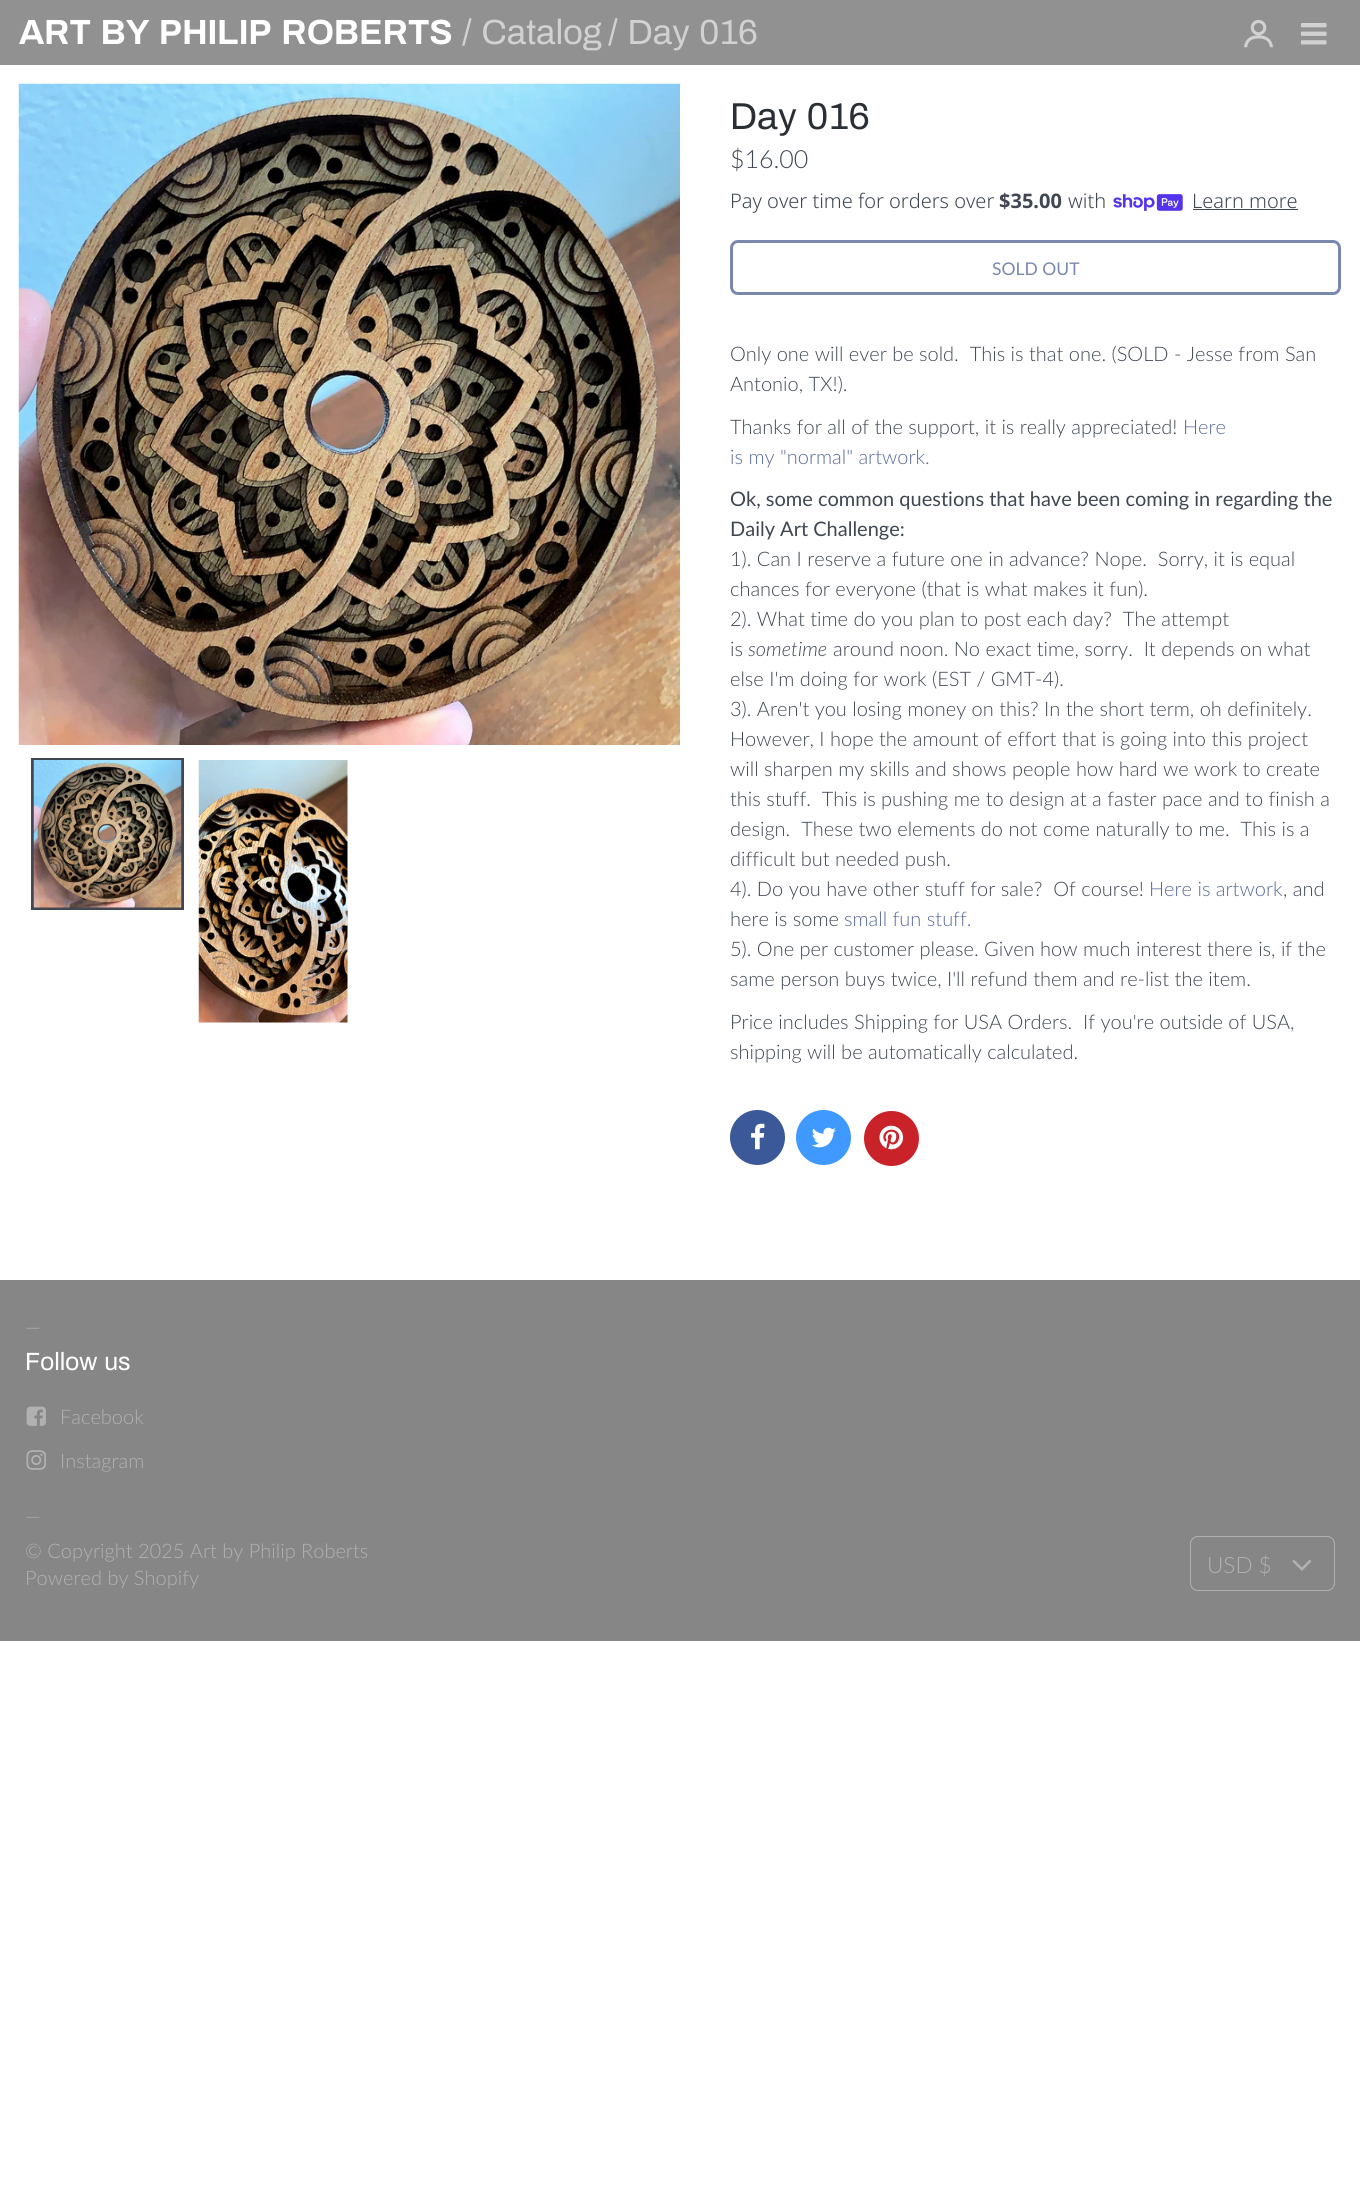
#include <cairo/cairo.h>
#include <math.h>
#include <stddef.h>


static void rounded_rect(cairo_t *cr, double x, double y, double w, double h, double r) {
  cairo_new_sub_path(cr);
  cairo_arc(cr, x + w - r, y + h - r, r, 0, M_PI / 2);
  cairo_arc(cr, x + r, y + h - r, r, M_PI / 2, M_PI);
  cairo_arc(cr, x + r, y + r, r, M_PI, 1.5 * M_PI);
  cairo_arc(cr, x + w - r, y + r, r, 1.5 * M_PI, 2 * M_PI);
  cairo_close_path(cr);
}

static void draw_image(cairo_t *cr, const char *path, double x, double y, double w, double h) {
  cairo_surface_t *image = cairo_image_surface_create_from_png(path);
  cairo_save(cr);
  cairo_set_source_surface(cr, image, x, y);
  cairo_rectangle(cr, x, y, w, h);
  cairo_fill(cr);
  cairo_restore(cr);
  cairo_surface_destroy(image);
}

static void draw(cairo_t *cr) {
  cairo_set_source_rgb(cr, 1, 1, 1);
  cairo_paint(cr);
  cairo_set_source_rgb(cr, 145 / 255.0, 145 / 255.0, 145 / 255.0);
  cairo_rectangle(cr, 0, 0, 1360, 65);
  cairo_fill(cr);
  draw_image(cr, "images/1.png", 1244, 19, 29, 29);
  draw_image(cr, "images/2.png", 1300, 23, 27, 22);
  draw_image(cr, "images/3.png", 18, 83, 662, 662);
  cairo_rectangle(cr, 32.5, 759.5, 150, 149);
  cairo_set_source_rgb(cr, 64 / 255.0, 71 / 255.0, 82 / 255.0);
  cairo_set_line_width(cr, 3);
  cairo_stroke(cr);
  draw_image(cr, "images/4.png", 33, 760, 149, 148);
  draw_image(cr, "images/5.png", 198, 760, 150, 263);
  draw_image(cr, "images/6.png", 1113, 194, 70, 17);
  cairo_rectangle(cr, 1193, 209, 105, 1);
  cairo_fill(cr);
  rounded_rect(cr, 731.5, 241.5, 608, 52, 6.5);
  cairo_set_source_rgb(cr, 122 / 255.0, 136 / 255.0, 174 / 255.0);
  cairo_stroke(cr);
  cairo_set_source_rgb(cr, 59 / 255.0, 89 / 255.0, 152 / 255.0);
  cairo_arc(cr, 757.5, 1137.5, 27.5, 0, 2 * M_PI);
  cairo_fill(cr);
  draw_image(cr, "images/7.png", 751, 1123, 14, 27);
  cairo_set_source_rgb(cr, 64 / 255.0, 153 / 255.0, 1);
  cairo_arc(cr, 823.5, 1137.5, 27.5, 0, 2 * M_PI);
  cairo_fill(cr);
  draw_image(cr, "images/8.png", 811, 1127, 25, 21);
  cairo_set_source_rgb(cr, 201 / 255.0, 34 / 255.0, 40 / 255.0);
  cairo_arc(cr, 891.5, 1138.5, 27.5, 0, 2 * M_PI);
  cairo_fill(cr);
  draw_image(cr, "images/9.png", 879, 1125, 24, 25);
  cairo_set_source_rgb(cr, 134 / 255.0, 134 / 255.0, 134 / 255.0);
  cairo_rectangle(cr, 0, 1280, 1360, 361);
  cairo_fill(cr);
  draw_image(cr, "images/10.png", 26, 1406, 20, 20);
  draw_image(cr, "images/11.png", 26, 1450, 20, 20);
  rounded_rect(cr, 1190.5, 1536.5, 144, 54, 7.5);
  cairo_set_source_rgb(cr, 177 / 255.0, 177 / 255.0, 177 / 255.0);
  cairo_set_line_width(cr, 1);
  cairo_stroke(cr);
  draw_image(cr, "images/12.png", 1292, 1560, 20, 11);
  cairo_select_font_face(cr, "Archivo", CAIRO_FONT_SLANT_NORMAL, CAIRO_FONT_WEIGHT_BOLD);
  cairo_set_font_size(cr, 35);
  cairo_set_source_rgb(cr, 1, 1, 1);
  cairo_move_to(cr, 19, 44);
  cairo_show_text(cr, "ART BY PHILIP ROBERTS");
  cairo_select_font_face(cr, "Archivo", CAIRO_FONT_SLANT_NORMAL, CAIRO_FONT_WEIGHT_NORMAL);
  cairo_set_source_rgb(cr, 209 / 255.0, 209 / 255.0, 209 / 255.0);
  cairo_move_to(cr, 462, 44);
  cairo_show_text(cr, "/ Catalog");
  cairo_move_to(cr, 608, 44);
  cairo_show_text(cr, "/ Day 016");
  cairo_set_font_size(cr, 37.5);
  cairo_set_source_rgb(cr, 42 / 255.0, 46 / 255.0, 53 / 255.0);
  cairo_move_to(cr, 730, 129);
  cairo_show_text(cr, "Day 016");
  cairo_select_font_face(cr, "Lato Light", CAIRO_FONT_SLANT_NORMAL, CAIRO_FONT_WEIGHT_NORMAL);
  cairo_set_font_size(cr, 25);
  cairo_set_source_rgb(cr, 64 / 255.0, 71 / 255.0, 82 / 255.0);
  cairo_move_to(cr, 730, 168);
  cairo_show_text(cr, "$16.00");
  cairo_select_font_face(cr, "Noto Sans Light", CAIRO_FONT_SLANT_NORMAL, CAIRO_FONT_WEIGHT_NORMAL);
  cairo_set_font_size(cr, 20);
  cairo_move_to(cr, 730, 208);
  cairo_show_text(cr, "Pay over time for orders over");
  cairo_select_font_face(cr, "Noto Sans", CAIRO_FONT_SLANT_NORMAL, CAIRO_FONT_WEIGHT_BOLD);
  cairo_move_to(cr, 999, 208);
  cairo_show_text(cr, "$35.00");
  cairo_select_font_face(cr, "Noto Sans Light", CAIRO_FONT_SLANT_NORMAL, CAIRO_FONT_WEIGHT_NORMAL);
  cairo_move_to(cr, 1068, 208);
  cairo_show_text(cr, "with");
  cairo_move_to(cr, 1192, 208);
  cairo_show_text(cr, "Learn more");
  cairo_select_font_face(cr, "Lato", CAIRO_FONT_SLANT_NORMAL, CAIRO_FONT_WEIGHT_NORMAL);
  cairo_set_font_size(cr, 17.5);
  cairo_set_source_rgb(cr, 122 / 255.0, 136 / 255.0, 174 / 255.0);
  cairo_move_to(cr, 992, 275);
  cairo_show_text(cr, "SOLD OUT");
  cairo_select_font_face(cr, "Lato Light", CAIRO_FONT_SLANT_NORMAL, CAIRO_FONT_WEIGHT_NORMAL);
  cairo_set_font_size(cr, 20);
  cairo_set_source_rgb(cr, 64 / 255.0, 71 / 255.0, 82 / 255.0);
  cairo_move_to(cr, 730, 361);
  cairo_show_text(cr, "Only one will ever be sold.  This is that one. (SOLD - Jesse from San");
  cairo_move_to(cr, 730, 391);
  cairo_show_text(cr, "Antonio, TX!).");
  cairo_move_to(cr, 730, 434);
  cairo_show_text(cr, "Thanks for all of the support, it is really appreciated!");
  cairo_set_source_rgb(cr, 89 / 255.0, 106 / 255.0, 154 / 255.0);
  cairo_move_to(cr, 1183, 434);
  cairo_show_text(cr, "Here");
  cairo_move_to(cr, 730, 464);
  cairo_show_text(cr, "is my \"normal\" artwork.");
  cairo_select_font_face(cr, "Lato", CAIRO_FONT_SLANT_NORMAL, CAIRO_FONT_WEIGHT_NORMAL);
  cairo_set_source_rgb(cr, 64 / 255.0, 71 / 255.0, 82 / 255.0);
  cairo_move_to(cr, 730, 506);
  cairo_show_text(cr, "Ok, some common questions that have been coming in regarding the");
  cairo_move_to(cr, 730, 536);
  cairo_show_text(cr, "Daily Art Challenge:");
  cairo_select_font_face(cr, "Lato Light", CAIRO_FONT_SLANT_NORMAL, CAIRO_FONT_WEIGHT_NORMAL);
  cairo_move_to(cr, 730, 566);
  cairo_show_text(cr, "1). Can I reserve a future one in advance? Nope.  Sorry, it is equal");
  cairo_move_to(cr, 730, 596);
  cairo_show_text(cr, "chances for everyone (that is what makes it fun).");
  cairo_move_to(cr, 730, 626);
  cairo_show_text(cr, "2). What time do you plan to post each day?  The attempt");
  cairo_move_to(cr, 730, 656);
  cairo_show_text(cr, "is");
  cairo_select_font_face(cr, "Lato Light", CAIRO_FONT_SLANT_ITALIC, CAIRO_FONT_WEIGHT_NORMAL);
  cairo_move_to(cr, 748, 656);
  cairo_show_text(cr, "sometime");
  cairo_select_font_face(cr, "Lato Light", CAIRO_FONT_SLANT_NORMAL, CAIRO_FONT_WEIGHT_NORMAL);
  cairo_move_to(cr, 833, 656);
  cairo_show_text(cr, "around noon. No exact time, sorry.  It depends on what");
  cairo_move_to(cr, 730, 686);
  cairo_show_text(cr, "else I'm doing for work (EST / GMT-4).");
  cairo_move_to(cr, 730, 716);
  cairo_show_text(cr, "3). Aren't you losing money on this? In the short term, oh definitely.");
  cairo_move_to(cr, 730, 746);
  cairo_show_text(cr, "However, I hope the amount of effort that is going into this project");
  cairo_move_to(cr, 730, 776);
  cairo_show_text(cr, "will sharpen my skills and shows people how hard we work to create");
  cairo_move_to(cr, 730, 806);
  cairo_show_text(cr, "this stuff.  This is pushing me to design at a faster pace and to finish a");
  cairo_move_to(cr, 730, 836);
  cairo_show_text(cr, "design.  These two elements do not come naturally to me.  This is a");
  cairo_move_to(cr, 730, 866);
  cairo_show_text(cr, "difficult but needed push.");
  cairo_move_to(cr, 730, 896);
  cairo_show_text(cr, "4). Do you have other stuff for sale?  Of course!");
  cairo_set_source_rgb(cr, 89 / 255.0, 106 / 255.0, 154 / 255.0);
  cairo_move_to(cr, 1149, 896);
  cairo_show_text(cr, "Here is artwork");
  cairo_set_source_rgb(cr, 64 / 255.0, 71 / 255.0, 82 / 255.0);
  cairo_move_to(cr, 1283, 896);
  cairo_show_text(cr, ", and");
  cairo_move_to(cr, 730, 926);
  cairo_show_text(cr, "here is some");
  cairo_set_source_rgb(cr, 89 / 255.0, 106 / 255.0, 154 / 255.0);
  cairo_move_to(cr, 844, 926);
  cairo_show_text(cr, "small fun stuff.");
  cairo_set_source_rgb(cr, 64 / 255.0, 71 / 255.0, 82 / 255.0);
  cairo_move_to(cr, 730, 956);
  cairo_show_text(cr, "5). One per customer please. Given how much interest there is, if the");
  cairo_move_to(cr, 730, 986);
  cairo_show_text(cr, "same person buys twice, I'll refund them and re-list the item.");
  cairo_move_to(cr, 730, 1029);
  cairo_show_text(cr, "Price includes Shipping for USA Orders.  If you're outside of USA,");
  cairo_move_to(cr, 730, 1059);
  cairo_show_text(cr, "shipping will be automatically calculated.");
  cairo_set_source_rgb(cr, 177 / 255.0, 177 / 255.0, 177 / 255.0);
  cairo_move_to(cr, 25, 1334);
  cairo_show_text(cr, "—");
  cairo_select_font_face(cr, "Archivo", CAIRO_FONT_SLANT_NORMAL, CAIRO_FONT_WEIGHT_NORMAL);
  cairo_set_font_size(cr, 25);
  cairo_set_source_rgb(cr, 1, 1, 1);
  cairo_move_to(cr, 25, 1370);
  cairo_show_text(cr, "Follow us");
  cairo_select_font_face(cr, "Lato Light", CAIRO_FONT_SLANT_NORMAL, CAIRO_FONT_WEIGHT_NORMAL);
  cairo_set_font_size(cr, 20);
  cairo_set_source_rgb(cr, 177 / 255.0, 177 / 255.0, 177 / 255.0);
  cairo_move_to(cr, 60, 1424);
  cairo_show_text(cr, "Facebook");
  cairo_move_to(cr, 60, 1468);
  cairo_show_text(cr, "Instagram");
  cairo_move_to(cr, 25, 1523);
  cairo_show_text(cr, "—");
  cairo_move_to(cr, 25, 1558);
  cairo_show_text(cr, "© Copyright 2025 Art by Philip Roberts");
  cairo_move_to(cr, 25, 1585);
  cairo_show_text(cr, "Powered by Shopify");
  cairo_set_font_size(cr, 22.5);
  cairo_move_to(cr, 1207, 1573);
  cairo_show_text(cr, "USD $");
}

int main(void) {
  cairo_surface_t *surface = cairo_image_surface_create(CAIRO_FORMAT_RGB24, 1360, 2208);
  cairo_t *cr = cairo_create(surface);
  cairo_font_options_t *options = cairo_font_options_create();
  cairo_font_options_set_hint_metrics(options, CAIRO_HINT_METRICS_OFF);
  cairo_font_options_set_hint_style(options, CAIRO_HINT_STYLE_NONE);
  cairo_set_font_options(cr, options);
  cairo_set_miter_limit(cr, 4);
  draw(cr);
  cairo_surface_write_to_png(surface, "out.png");
  cairo_font_options_destroy(options);
  cairo_destroy(cr);
  cairo_surface_destroy(surface);
  return 0;
}
